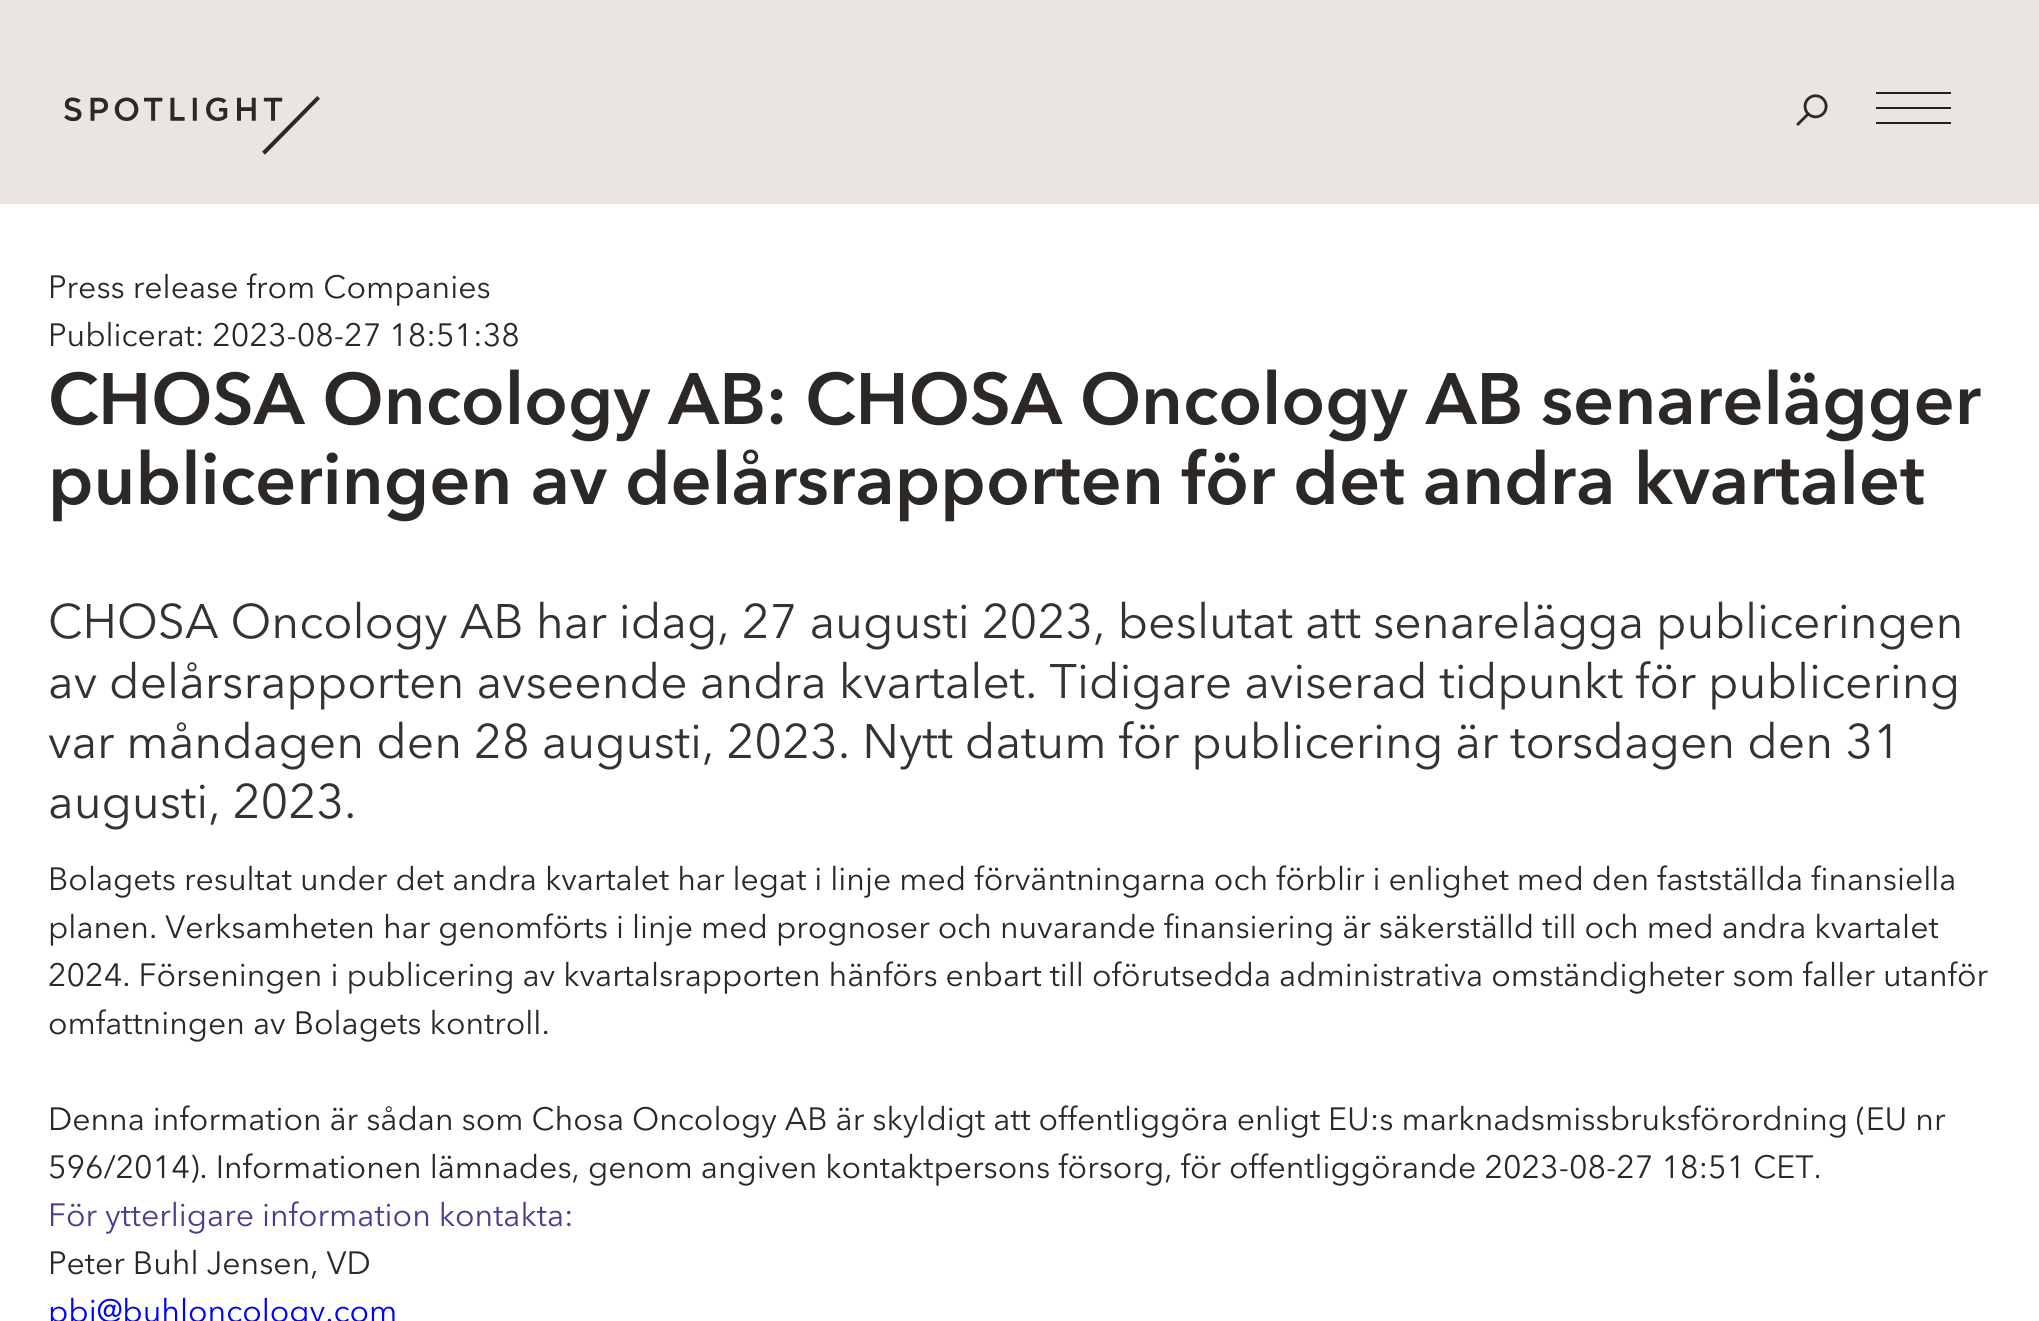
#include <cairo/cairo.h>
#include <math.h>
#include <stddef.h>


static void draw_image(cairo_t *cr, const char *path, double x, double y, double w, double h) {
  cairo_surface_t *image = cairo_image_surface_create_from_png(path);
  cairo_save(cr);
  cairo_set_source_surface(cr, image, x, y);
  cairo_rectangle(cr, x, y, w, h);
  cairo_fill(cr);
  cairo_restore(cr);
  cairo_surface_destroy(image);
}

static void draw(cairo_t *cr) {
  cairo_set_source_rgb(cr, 1, 1, 1);
  cairo_paint(cr);
  cairo_set_source_rgb(cr, 232 / 255.0, 229 / 255.0, 226 / 255.0);
  cairo_rectangle(cr, 0, 0, 2039, 204);
  cairo_fill(cr);
  draw_image(cr, "images/1.png", 64, 96, 256, 59);
  draw_image(cr, "images/2.png", 1796, 94, 32, 32);
  cairo_set_source_rgb(cr, 33 / 255.0, 32 / 255.0, 33 / 255.0);
  cairo_rectangle(cr, 1876, 92, 75, 2);
  cairo_fill(cr);
  cairo_rectangle(cr, 1876, 122, 75, 2);
  cairo_fill(cr);
  cairo_rectangle(cr, 1876, 107, 75, 2);
  cairo_fill(cr);
  cairo_select_font_face(cr, "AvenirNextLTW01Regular", CAIRO_FONT_SLANT_NORMAL, CAIRO_FONT_WEIGHT_NORMAL);
  cairo_set_font_size(cr, 32);
  cairo_set_source_rgb(cr, 43 / 255.0, 40 / 255.0, 37 / 255.0);
  cairo_move_to(cr, 48, 298);
  cairo_show_text(cr, "Press release from Companies");
  cairo_move_to(cr, 48, 346);
  cairo_show_text(cr, "Publicerat: 2023-08-27 18:51:38");
  cairo_select_font_face(cr, "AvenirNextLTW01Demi", CAIRO_FONT_SLANT_NORMAL, CAIRO_FONT_WEIGHT_BOLD);
  cairo_set_font_size(cr, 72);
  cairo_move_to(cr, 48, 424);
  cairo_show_text(cr, "CHOSA Oncology AB: CHOSA Oncology AB senarelägger");
  cairo_move_to(cr, 48, 504);
  cairo_show_text(cr, "publiceringen av delårsrapporten för det andra kvartalet");
  cairo_select_font_face(cr, "AvenirNextLTW01Regular", CAIRO_FONT_SLANT_NORMAL, CAIRO_FONT_WEIGHT_NORMAL);
  cairo_set_font_size(cr, 48);
  cairo_set_source_rgb(cr, 51 / 255.0, 51 / 255.0, 51 / 255.0);
  cairo_move_to(cr, 48, 638);
  cairo_show_text(cr, "CHOSA Oncology AB har idag, 27 augusti 2023, beslutat att senarelägga publiceringen");
  cairo_move_to(cr, 48, 698);
  cairo_show_text(cr, "av delårsrapporten avseende andra kvartalet. Tidigare aviserad tidpunkt för publicering");
  cairo_move_to(cr, 48, 758);
  cairo_show_text(cr, "var måndagen den 28 augusti, 2023. Nytt datum för publicering är torsdagen den 31");
  cairo_move_to(cr, 48, 818);
  cairo_show_text(cr, "augusti, 2023.");
  cairo_set_font_size(cr, 32);
  cairo_set_source_rgb(cr, 43 / 255.0, 40 / 255.0, 37 / 255.0);
  cairo_move_to(cr, 48, 890);
  cairo_show_text(cr, "Bolagets resultat under det andra kvartalet har legat i linje med förväntningarna och förblir i enlighet med den fastställda finansiella");
  cairo_move_to(cr, 48, 938);
  cairo_show_text(cr, "planen. Verksamheten har genomförts i linje med prognoser och nuvarande finansiering är säkerställd till och med andra kvartalet");
  cairo_move_to(cr, 48, 986);
  cairo_show_text(cr, "2024. Förseningen i publicering av kvartalsrapporten hänförs enbart till oförutsedda administrativa omständigheter som faller utanför");
  cairo_move_to(cr, 48, 1034);
  cairo_show_text(cr, "omfattningen av Bolagets kontroll.");
  cairo_move_to(cr, 48, 1130);
  cairo_show_text(cr, "Denna information är sådan som Chosa Oncology AB är skyldigt att offentliggöra enligt EU:s marknadsmissbruksförordning (EU nr");
  cairo_move_to(cr, 48, 1178);
  cairo_show_text(cr, "596/2014). Informationen lämnades, genom angiven kontaktpersons försorg, för offentliggörande 2023-08-27 18:51 CET.");
  cairo_set_source_rgb(cr, 76 / 255.0, 60 / 255.0, 144 / 255.0);
  cairo_move_to(cr, 48, 1226);
  cairo_show_text(cr, "För ytterligare information kontakta:");
  cairo_set_source_rgb(cr, 43 / 255.0, 40 / 255.0, 37 / 255.0);
  cairo_move_to(cr, 48, 1274);
  cairo_show_text(cr, "Peter Buhl Jensen, VD");
  cairo_set_source_rgb(cr, 0, 0, 1);
  cairo_move_to(cr, 48, 1322);
  cairo_show_text(cr, "pbj@buhloncology.com");
}

int main(void) {
  cairo_surface_t *surface = cairo_image_surface_create(CAIRO_FORMAT_RGB24, 2039, 1321);
  cairo_t *cr = cairo_create(surface);
  cairo_font_options_t *options = cairo_font_options_create();
  cairo_font_options_set_hint_metrics(options, CAIRO_HINT_METRICS_OFF);
  cairo_font_options_set_hint_style(options, CAIRO_HINT_STYLE_NONE);
  cairo_set_font_options(cr, options);
  cairo_set_miter_limit(cr, 4);
  draw(cr);
  cairo_surface_write_to_png(surface, "out.png");
  cairo_font_options_destroy(options);
  cairo_destroy(cr);
  cairo_surface_destroy(surface);
  return 0;
}
